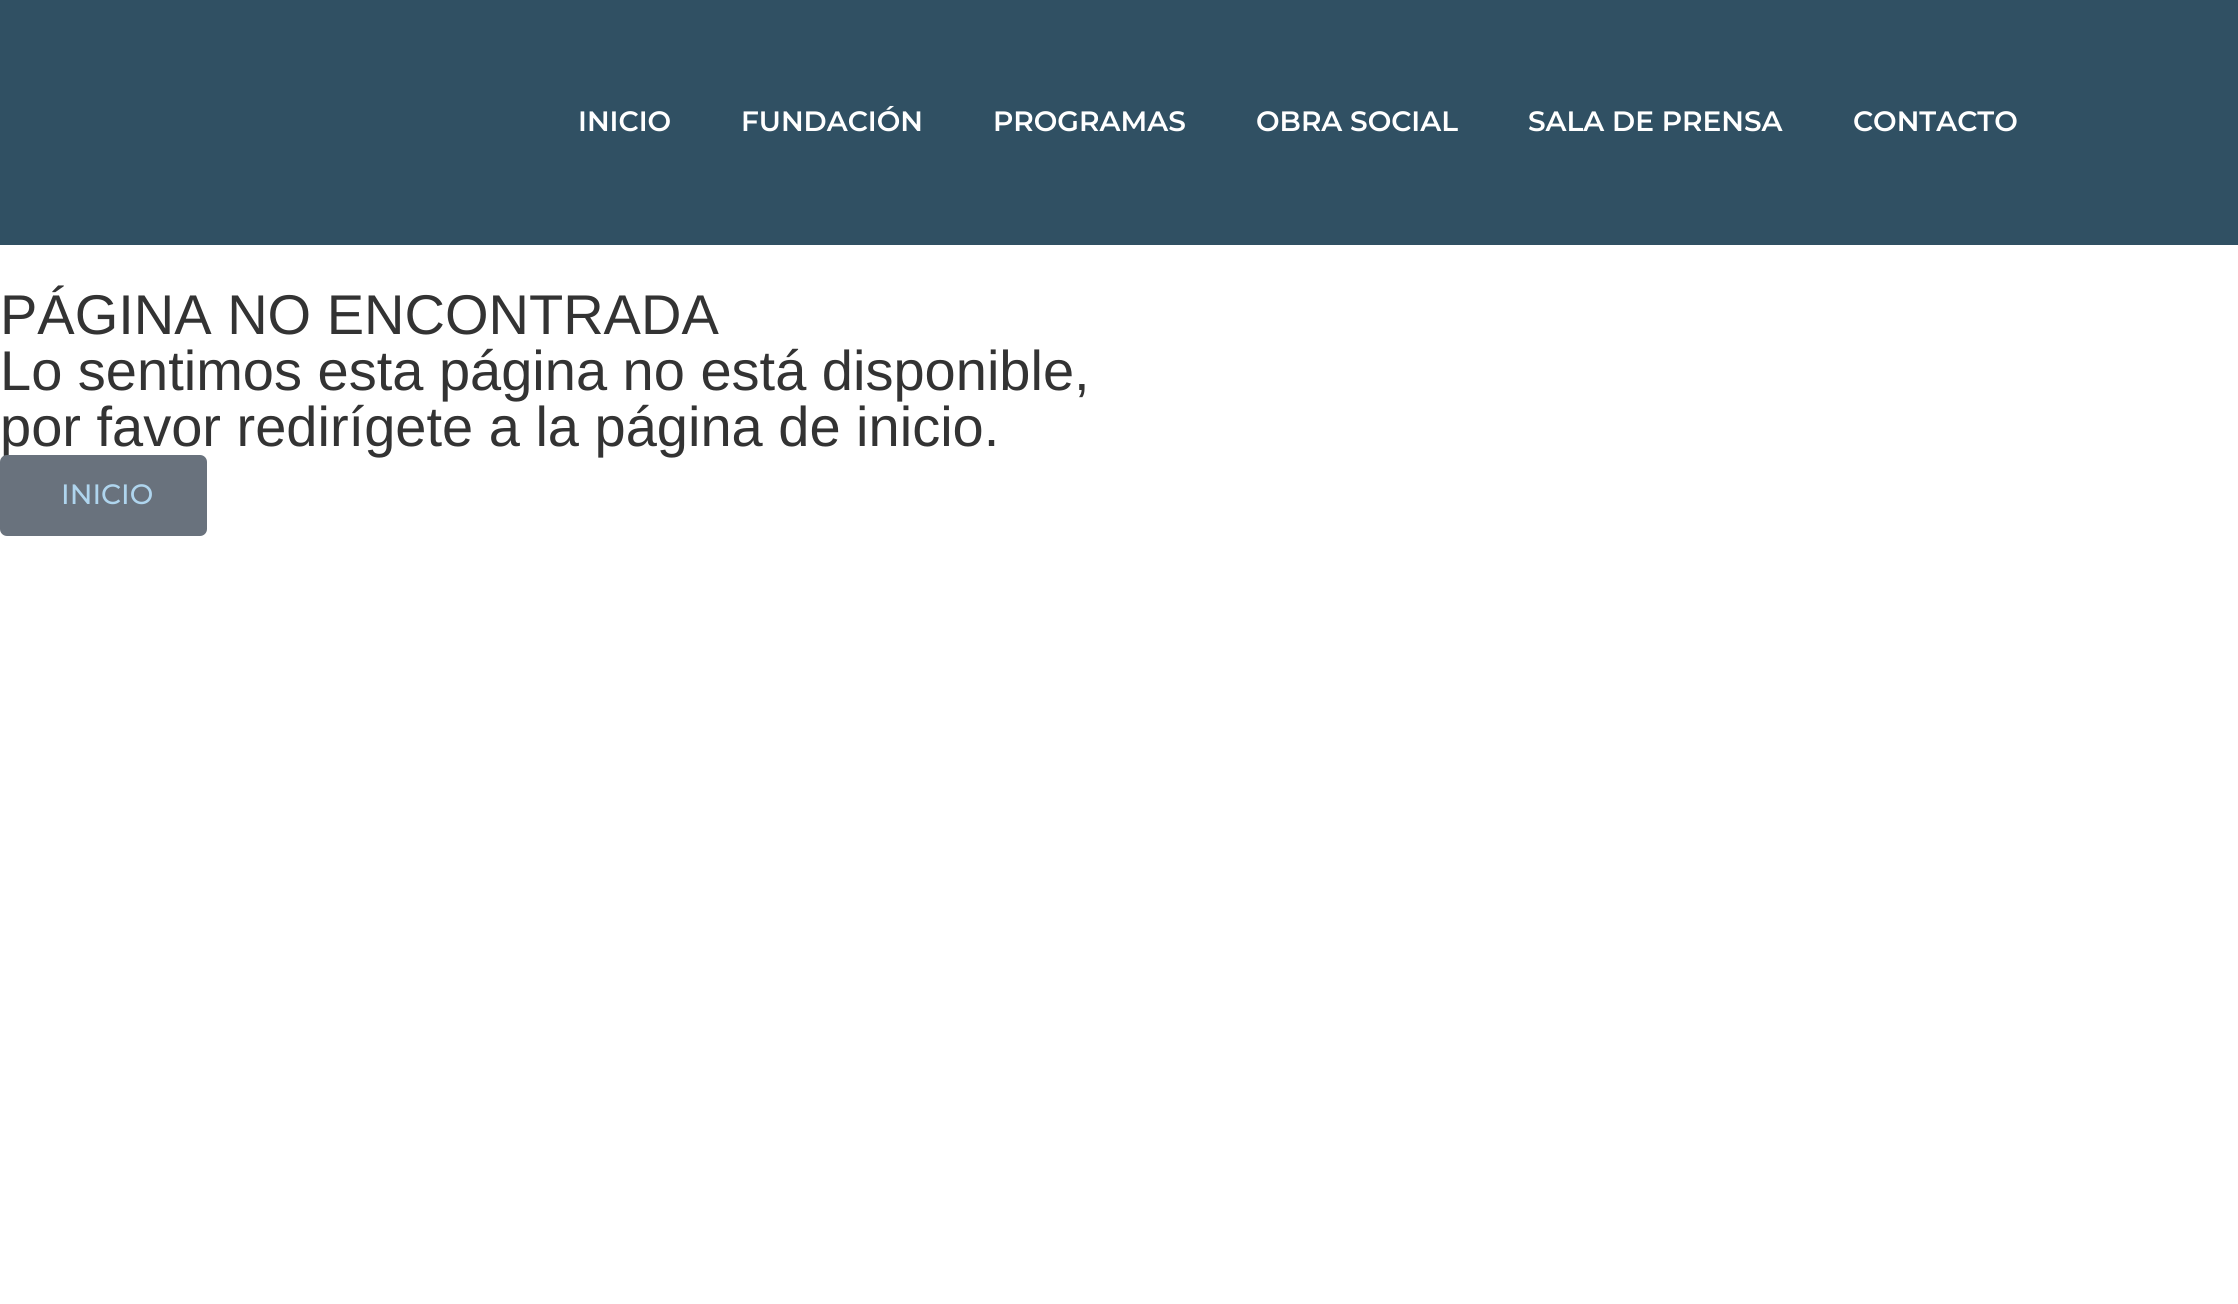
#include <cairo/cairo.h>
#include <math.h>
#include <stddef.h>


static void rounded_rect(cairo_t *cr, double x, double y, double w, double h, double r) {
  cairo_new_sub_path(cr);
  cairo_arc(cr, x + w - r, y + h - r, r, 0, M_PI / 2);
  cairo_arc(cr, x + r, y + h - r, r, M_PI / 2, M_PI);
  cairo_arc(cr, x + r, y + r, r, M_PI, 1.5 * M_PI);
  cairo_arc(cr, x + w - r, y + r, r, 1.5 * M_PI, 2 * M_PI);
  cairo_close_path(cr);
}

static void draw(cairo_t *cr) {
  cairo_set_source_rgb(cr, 1, 1, 1);
  cairo_paint(cr);
  cairo_set_source_rgb(cr, 48 / 255.0, 80 / 255.0, 99 / 255.0);
  cairo_rectangle(cr, 0, 0, 2238, 245);
  cairo_fill(cr);
  cairo_select_font_face(cr, "Montserrat SemiBold", CAIRO_FONT_SLANT_NORMAL, CAIRO_FONT_WEIGHT_NORMAL);
  cairo_set_font_size(cr, 28);
  cairo_set_source_rgb(cr, 1, 1, 1);
  cairo_move_to(cr, 578, 131);
  cairo_show_text(cr, "INICIO");
  cairo_move_to(cr, 741, 131);
  cairo_show_text(cr, "FUNDACIÓN");
  cairo_move_to(cr, 993, 131);
  cairo_show_text(cr, "PROGRAMAS");
  cairo_move_to(cr, 1256, 131);
  cairo_show_text(cr, "OBRA SOCIAL");
  cairo_move_to(cr, 1528, 131);
  cairo_show_text(cr, "SALA DE PRENSA");
  cairo_move_to(cr, 1853, 131);
  cairo_show_text(cr, "CONTACTO");
  cairo_select_font_face(cr, "Liberation Sans", CAIRO_FONT_SLANT_NORMAL, CAIRO_FONT_WEIGHT_NORMAL);
  cairo_set_font_size(cr, 56);
  cairo_set_source_rgb(cr, 51 / 255.0, 51 / 255.0, 51 / 255.0);
  cairo_move_to(cr, 0, 334);
  cairo_show_text(cr, "PÁGINA NO ENCONTRADA");
  cairo_move_to(cr, 0, 390);
  cairo_show_text(cr, "Lo sentimos esta página no está disponible,");
  cairo_move_to(cr, 0, 446);
  cairo_show_text(cr, "por favor redirígete a la página de inicio.");
  cairo_set_source_rgb(cr, 105 / 255.0, 114 / 255.0, 125 / 255.0);
  rounded_rect(cr, 0, 455, 207, 81, 7);
  cairo_fill(cr);
  cairo_select_font_face(cr, "Montserrat Medium", CAIRO_FONT_SLANT_NORMAL, CAIRO_FONT_WEIGHT_NORMAL);
  cairo_set_font_size(cr, 28);
  cairo_set_source_rgb(cr, 175 / 255.0, 213 / 255.0, 238 / 255.0);
  cairo_move_to(cr, 61, 504);
  cairo_show_text(cr, "INICIO");
}

int main(void) {
  cairo_surface_t *surface = cairo_image_surface_create(CAIRO_FORMAT_RGB24, 2238, 1304);
  cairo_t *cr = cairo_create(surface);
  cairo_font_options_t *options = cairo_font_options_create();
  cairo_font_options_set_hint_metrics(options, CAIRO_HINT_METRICS_OFF);
  cairo_font_options_set_hint_style(options, CAIRO_HINT_STYLE_NONE);
  cairo_set_font_options(cr, options);
  cairo_set_miter_limit(cr, 4);
  draw(cr);
  cairo_surface_write_to_png(surface, "out.png");
  cairo_font_options_destroy(options);
  cairo_destroy(cr);
  cairo_surface_destroy(surface);
  return 0;
}
